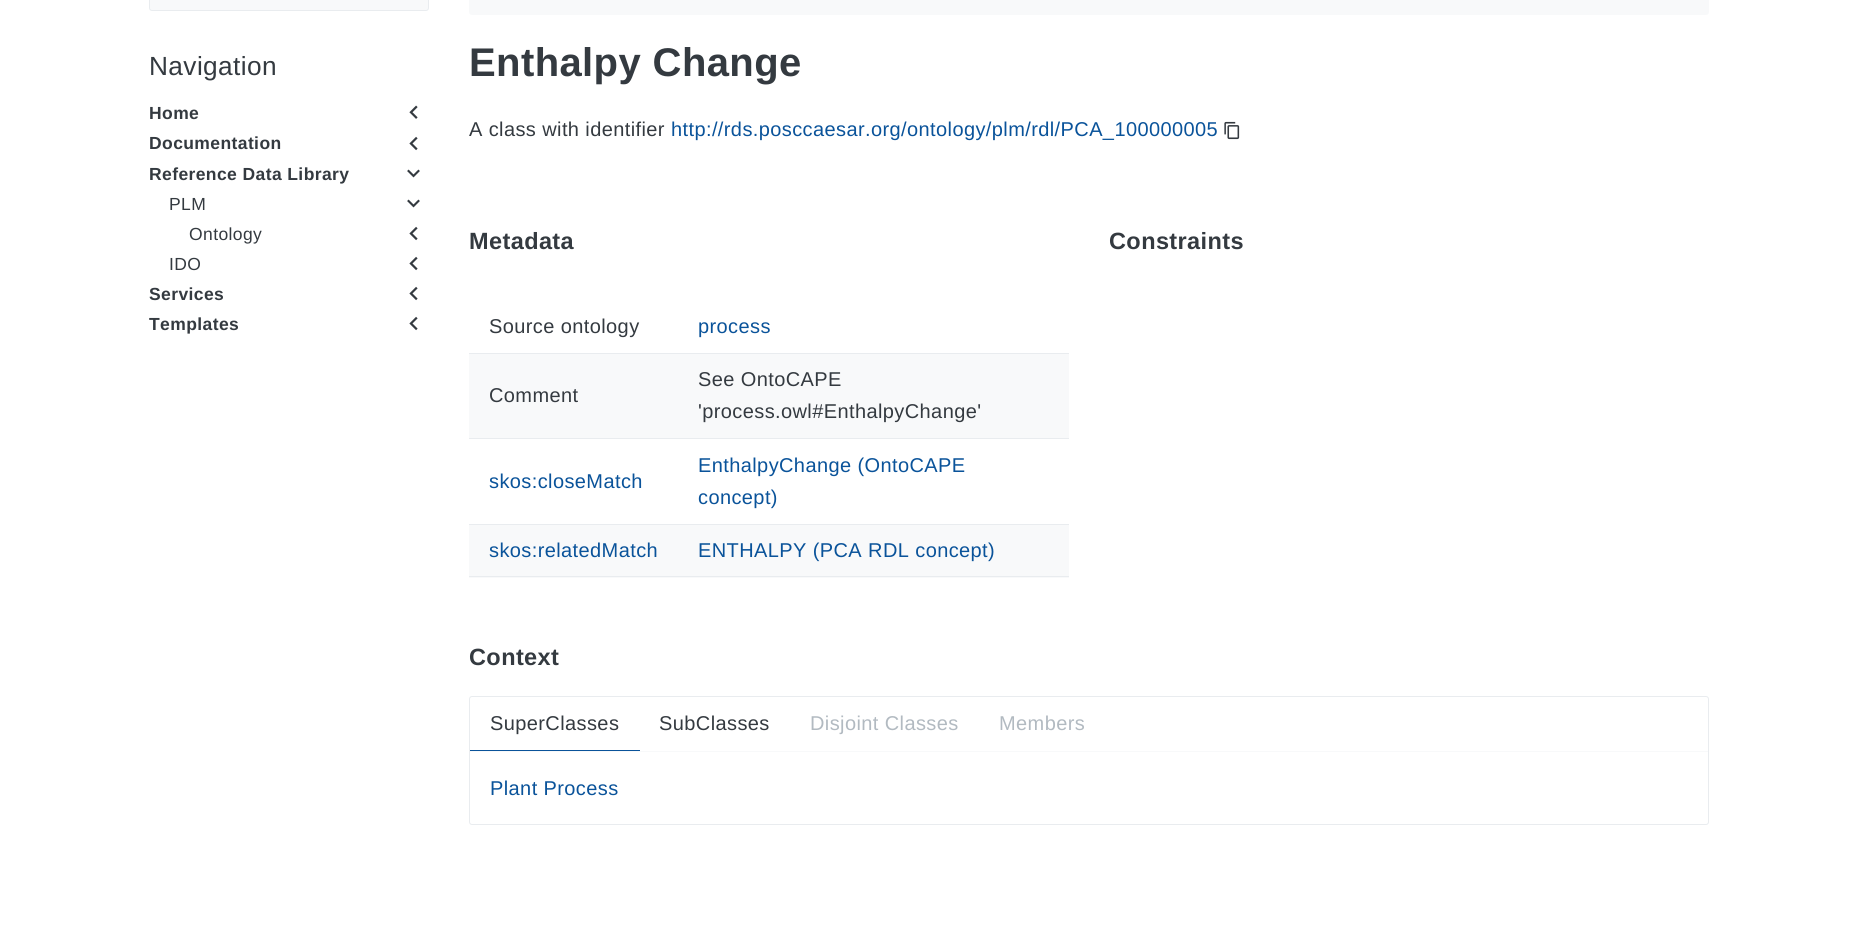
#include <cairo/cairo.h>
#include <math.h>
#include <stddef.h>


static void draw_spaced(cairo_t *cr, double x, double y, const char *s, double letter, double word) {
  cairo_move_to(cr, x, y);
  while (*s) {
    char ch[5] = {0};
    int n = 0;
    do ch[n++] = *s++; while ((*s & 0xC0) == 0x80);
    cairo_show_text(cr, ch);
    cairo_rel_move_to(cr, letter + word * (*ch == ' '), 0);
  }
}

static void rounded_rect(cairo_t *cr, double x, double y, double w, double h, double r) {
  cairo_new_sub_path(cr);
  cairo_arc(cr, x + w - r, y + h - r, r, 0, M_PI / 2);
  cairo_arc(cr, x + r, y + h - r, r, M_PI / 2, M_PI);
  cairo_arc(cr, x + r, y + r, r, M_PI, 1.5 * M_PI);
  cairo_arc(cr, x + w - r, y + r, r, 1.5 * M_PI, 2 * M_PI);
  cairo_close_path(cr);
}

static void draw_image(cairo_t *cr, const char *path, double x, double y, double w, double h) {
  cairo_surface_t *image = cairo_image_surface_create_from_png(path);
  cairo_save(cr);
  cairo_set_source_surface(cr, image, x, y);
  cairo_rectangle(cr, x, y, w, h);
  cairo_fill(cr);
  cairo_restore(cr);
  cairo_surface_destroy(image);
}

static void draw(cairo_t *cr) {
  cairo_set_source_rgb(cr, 1, 1, 1);
  cairo_paint(cr);
  cairo_set_source_rgb(cr, 248 / 255.0, 249 / 255.0, 250 / 255.0);
  rounded_rect(cr, 149.5, -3.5, 279, 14, 2.5);
  cairo_fill_preserve(cr);
  cairo_set_source_rgb(cr, 233 / 255.0, 236 / 255.0, 239 / 255.0);
  cairo_set_line_width(cr, 1);
  cairo_stroke(cr);
  draw_image(cr, "images/1.png", 409, 105, 9, 14);
  draw_image(cr, "images/2.png", 409, 136, 9, 15);
  draw_image(cr, "images/3.png", 407, 169, 13, 9);
  draw_image(cr, "images/3.png", 407, 199, 13, 9);
  draw_image(cr, "images/2.png", 409, 226, 9, 15);
  draw_image(cr, "images/2.png", 409, 256, 9, 15);
  draw_image(cr, "images/2.png", 409, 286, 9, 15);
  draw_image(cr, "images/2.png", 409, 316, 9, 15);
  cairo_set_source_rgb(cr, 248 / 255.0, 249 / 255.0, 250 / 255.0);
  rounded_rect(cr, 469, -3, 1240, 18, 3);
  cairo_fill(cr);
  draw_image(cr, "images/4.png", 1224, 121, 16, 19);
  cairo_set_source_rgb(cr, 233 / 255.0, 236 / 255.0, 239 / 255.0);
  cairo_rectangle(cr, 469, 353, 600, 1);
  cairo_fill(cr);
  cairo_set_source_rgb(cr, 248 / 255.0, 249 / 255.0, 250 / 255.0);
  cairo_rectangle(cr, 469, 354, 600, 84);
  cairo_fill(cr);
  cairo_set_source_rgb(cr, 233 / 255.0, 236 / 255.0, 239 / 255.0);
  cairo_rectangle(cr, 469, 438, 600, 1);
  cairo_fill(cr);
  cairo_rectangle(cr, 469, 524, 600, 1);
  cairo_fill(cr);
  cairo_set_source_rgb(cr, 248 / 255.0, 249 / 255.0, 250 / 255.0);
  cairo_rectangle(cr, 469, 525, 600, 53);
  cairo_fill(cr);
  cairo_set_source_rgb(cr, 233 / 255.0, 236 / 255.0, 239 / 255.0);
  cairo_rectangle(cr, 469, 576, 600, 1);
  cairo_fill(cr);
  rounded_rect(cr, 469.5, 696.5, 1239, 128, 2.5);
  cairo_stroke(cr);
  cairo_set_source_rgb(cr, 10 / 255.0, 83 / 255.0, 154 / 255.0);
  cairo_rectangle(cr, 470, 750, 170, 1);
  cairo_fill(cr);
  cairo_set_source_rgb(cr, 248 / 255.0, 249 / 255.0, 250 / 255.0);
  cairo_rectangle(cr, 470, 751, 1238, 1);
  cairo_fill(cr);
  cairo_select_font_face(cr, "Liberation Sans", CAIRO_FONT_SLANT_NORMAL, CAIRO_FONT_WEIGHT_NORMAL);
  cairo_set_font_size(cr, 26.25);
  cairo_set_source_rgb(cr, 52 / 255.0, 58 / 255.0, 64 / 255.0);
  draw_spaced(cr, 149, 75, "Navigation", 0.4, 0);
  cairo_select_font_face(cr, "Liberation Sans", CAIRO_FONT_SLANT_NORMAL, CAIRO_FONT_WEIGHT_BOLD);
  cairo_set_font_size(cr, 17.5);
  draw_spaced(cr, 149, 119, "Home", 0.4, 0);
  draw_spaced(cr, 149, 149, "Documentation", 0.4, 0);
  draw_spaced(cr, 149, 180, "Reference Data Library", 0.4, 0);
  cairo_select_font_face(cr, "Liberation Sans", CAIRO_FONT_SLANT_NORMAL, CAIRO_FONT_WEIGHT_NORMAL);
  draw_spaced(cr, 169, 210, "PLM", 0.4, 0);
  draw_spaced(cr, 189, 240, "Ontology", 0.4, 0);
  draw_spaced(cr, 169, 270, "IDO", 0.4, 0);
  cairo_select_font_face(cr, "Liberation Sans", CAIRO_FONT_SLANT_NORMAL, CAIRO_FONT_WEIGHT_BOLD);
  draw_spaced(cr, 149, 300, "Services", 0.4, 0);
  draw_spaced(cr, 149, 330, "Templates", 0.4, 0);
  cairo_set_font_size(cr, 40);
  draw_spaced(cr, 469, 76, "Enthalpy Change", 0.4, 0);
  cairo_select_font_face(cr, "Liberation Sans", CAIRO_FONT_SLANT_NORMAL, CAIRO_FONT_WEIGHT_NORMAL);
  cairo_set_font_size(cr, 20);
  draw_spaced(cr, 469, 136, "A class with identifier", 0.4, 0);
  cairo_set_source_rgb(cr, 10 / 255.0, 83 / 255.0, 154 / 255.0);
  draw_spaced(cr, 671, 136, "http://rds.posccaesar.org/ontology/plm/rdl/PCA_100000005", 0.4, 0);
  cairo_select_font_face(cr, "Liberation Sans", CAIRO_FONT_SLANT_NORMAL, CAIRO_FONT_WEIGHT_BOLD);
  cairo_set_font_size(cr, 23.5);
  cairo_set_source_rgb(cr, 52 / 255.0, 58 / 255.0, 64 / 255.0);
  draw_spaced(cr, 469, 249, "Metadata", 0.4, 0);
  cairo_select_font_face(cr, "Liberation Sans", CAIRO_FONT_SLANT_NORMAL, CAIRO_FONT_WEIGHT_NORMAL);
  cairo_set_font_size(cr, 20);
  draw_spaced(cr, 489, 333, "Source ontology", 0.4, 0);
  cairo_set_source_rgb(cr, 10 / 255.0, 83 / 255.0, 154 / 255.0);
  draw_spaced(cr, 698, 333, "process", 0.4, 0);
  cairo_set_source_rgb(cr, 52 / 255.0, 58 / 255.0, 64 / 255.0);
  draw_spaced(cr, 489, 402, "Comment", 0.4, 0);
  draw_spaced(cr, 698, 386, "See OntoCAPE", 0.4, 0);
  draw_spaced(cr, 698, 418, "'process.owl#EnthalpyChange'", 0.4, 0);
  cairo_set_source_rgb(cr, 10 / 255.0, 83 / 255.0, 154 / 255.0);
  draw_spaced(cr, 489, 488, "skos:closeMatch", 0.4, 0);
  draw_spaced(cr, 698, 472, "EnthalpyChange (OntoCAPE", 0.4, 0);
  draw_spaced(cr, 698, 504, "concept)", 0.4, 0);
  draw_spaced(cr, 489, 557, "skos:relatedMatch", 0.4, 0);
  draw_spaced(cr, 698, 557, "ENTHALPY (PCA RDL concept)", 0.4, 0);
  cairo_select_font_face(cr, "Liberation Sans", CAIRO_FONT_SLANT_NORMAL, CAIRO_FONT_WEIGHT_BOLD);
  cairo_set_font_size(cr, 23.5);
  cairo_set_source_rgb(cr, 52 / 255.0, 58 / 255.0, 64 / 255.0);
  draw_spaced(cr, 1109, 249, "Constraints", 0.4, 0);
  draw_spaced(cr, 469, 665, "Context", 0.4, 0);
  cairo_select_font_face(cr, "Liberation Sans", CAIRO_FONT_SLANT_NORMAL, CAIRO_FONT_WEIGHT_NORMAL);
  cairo_set_font_size(cr, 20);
  draw_spaced(cr, 490, 730, "SuperClasses", 0.4, 0);
  draw_spaced(cr, 659, 730, "SubClasses", 0.4, 0);
  cairo_set_source_rgb(cr, 178 / 255.0, 186 / 255.0, 193 / 255.0);
  draw_spaced(cr, 810, 730, "Disjoint Classes", 0.4, 0);
  draw_spaced(cr, 999, 730, "Members", 0.4, 0);
  cairo_set_source_rgb(cr, 10 / 255.0, 83 / 255.0, 154 / 255.0);
  draw_spaced(cr, 490, 795, "Plant Process", 0.4, 0);
}

int main(void) {
  cairo_surface_t *surface = cairo_image_surface_create(CAIRO_FORMAT_RGB24, 1857, 930);
  cairo_t *cr = cairo_create(surface);
  cairo_font_options_t *options = cairo_font_options_create();
  cairo_font_options_set_hint_metrics(options, CAIRO_HINT_METRICS_OFF);
  cairo_font_options_set_hint_style(options, CAIRO_HINT_STYLE_NONE);
  cairo_set_font_options(cr, options);
  cairo_set_miter_limit(cr, 4);
  draw(cr);
  cairo_surface_write_to_png(surface, "out.png");
  cairo_font_options_destroy(options);
  cairo_destroy(cr);
  cairo_surface_destroy(surface);
  return 0;
}
